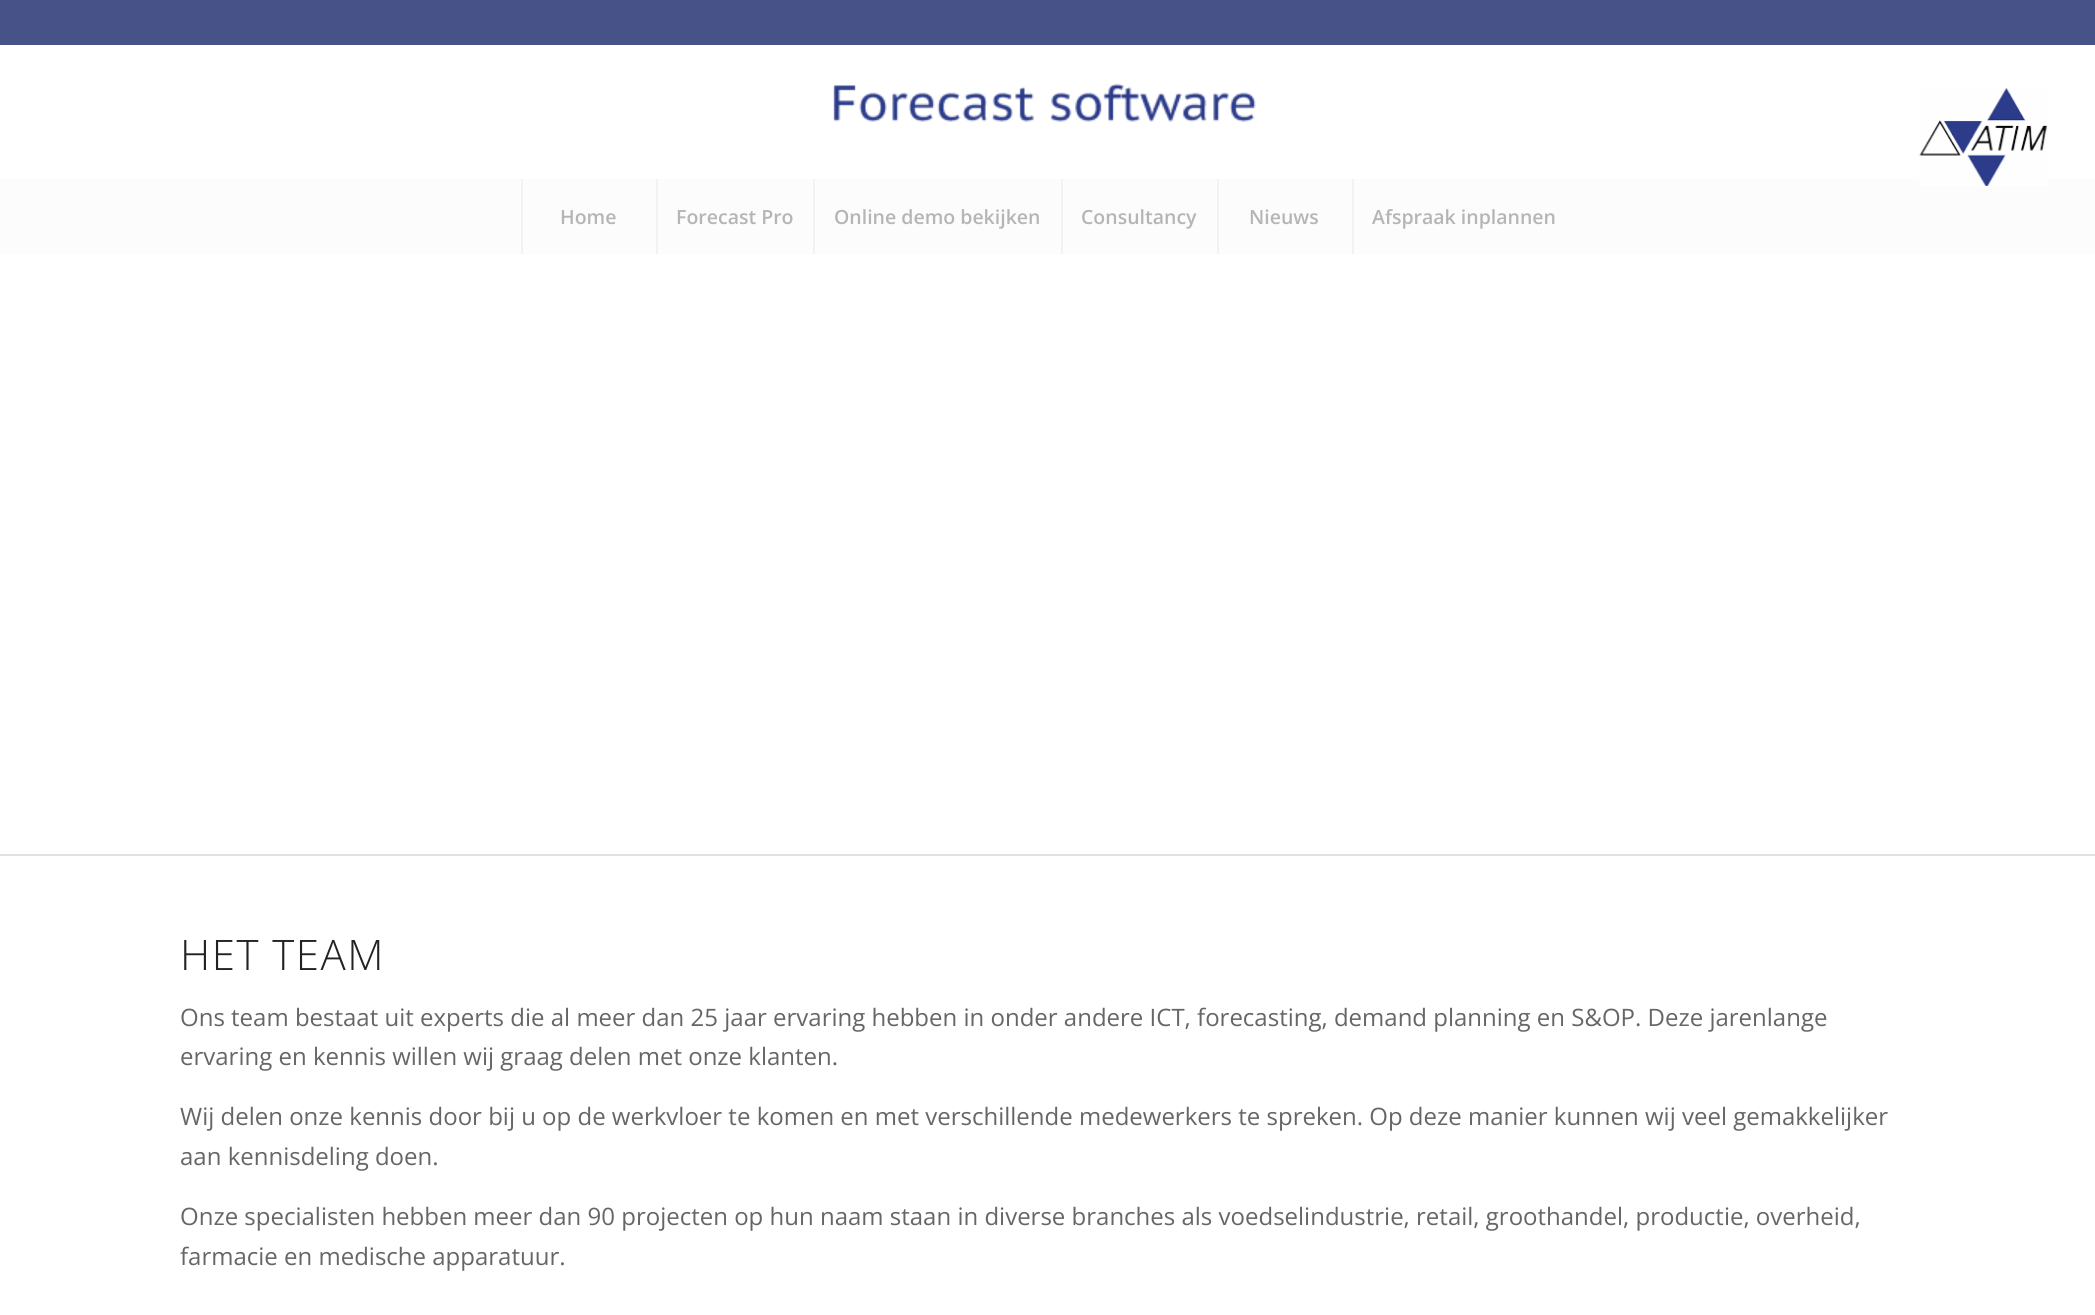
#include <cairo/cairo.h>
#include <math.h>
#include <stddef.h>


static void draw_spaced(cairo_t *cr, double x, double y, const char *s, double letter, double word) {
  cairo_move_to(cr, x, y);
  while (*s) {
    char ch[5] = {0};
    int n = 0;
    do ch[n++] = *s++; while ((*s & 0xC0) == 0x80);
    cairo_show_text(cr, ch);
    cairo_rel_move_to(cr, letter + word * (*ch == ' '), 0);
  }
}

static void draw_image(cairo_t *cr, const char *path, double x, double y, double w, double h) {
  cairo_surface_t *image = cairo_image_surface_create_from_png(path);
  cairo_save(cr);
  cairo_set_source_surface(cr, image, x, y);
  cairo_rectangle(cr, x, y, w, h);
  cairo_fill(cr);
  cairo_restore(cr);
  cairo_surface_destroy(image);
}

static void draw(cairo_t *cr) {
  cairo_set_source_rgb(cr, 1, 1, 1);
  cairo_paint(cr);
  cairo_set_source_rgb(cr, 71 / 255.0, 82 / 255.0, 137 / 255.0);
  cairo_rectangle(cr, 0, 0, 2095, 45);
  cairo_fill(cr);
  draw_image(cr, "images/1.png", 833, 83, 423, 39);
  cairo_set_source_rgb(cr, 252 / 255.0, 252 / 255.0, 252 / 255.0);
  cairo_rectangle(cr, 0, 179, 2095, 75);
  cairo_fill(cr);
  draw_image(cr, "images/2.png", 1919, 88, 129, 98);
  cairo_set_source_rgb(cr, 242 / 255.0, 242 / 255.0, 242 / 255.0);
  cairo_rectangle(cr, 521, 179, 2, 75);
  cairo_fill(cr);
  cairo_rectangle(cr, 656, 179, 2, 75);
  cairo_fill(cr);
  cairo_rectangle(cr, 813, 179, 2, 75);
  cairo_fill(cr);
  cairo_rectangle(cr, 1061, 179, 2, 75);
  cairo_fill(cr);
  cairo_rectangle(cr, 1217, 179, 2, 75);
  cairo_fill(cr);
  cairo_rectangle(cr, 1352, 179, 2, 75);
  cairo_fill(cr);
  cairo_set_source_rgb(cr, 225 / 255.0, 225 / 255.0, 225 / 255.0);
  cairo_rectangle(cr, 0, 854, 2095, 2);
  cairo_fill(cr);
  cairo_select_font_face(cr, "Open Sans SemiBold", CAIRO_FONT_SLANT_NORMAL, CAIRO_FONT_WEIGHT_NORMAL);
  cairo_set_font_size(cr, 19.5);
  cairo_set_source_rgb(cr, 181 / 255.0, 181 / 255.0, 181 / 255.0);
  cairo_move_to(cr, 560, 224);
  cairo_show_text(cr, "Home");
  cairo_move_to(cr, 676, 224);
  cairo_show_text(cr, "Forecast Pro");
  cairo_move_to(cr, 834, 224);
  cairo_show_text(cr, "Online demo bekijken");
  cairo_move_to(cr, 1081, 224);
  cairo_show_text(cr, "Consultancy");
  cairo_move_to(cr, 1249, 224);
  cairo_show_text(cr, "Nieuws");
  cairo_move_to(cr, 1372, 224);
  cairo_show_text(cr, "Afspraak inplannen");
  cairo_select_font_face(cr, "Open Sans Light", CAIRO_FONT_SLANT_NORMAL, CAIRO_FONT_WEIGHT_NORMAL);
  cairo_set_font_size(cr, 42);
  cairo_set_source_rgb(cr, 34 / 255.0, 34 / 255.0, 34 / 255.0);
  draw_spaced(cr, 180, 970, "HET TEAM", 1.5, 0);
  cairo_select_font_face(cr, "Open Sans", CAIRO_FONT_SLANT_NORMAL, CAIRO_FONT_WEIGHT_NORMAL);
  cairo_set_font_size(cr, 24);
  cairo_set_source_rgb(cr, 102 / 255.0, 102 / 255.0, 102 / 255.0);
  cairo_move_to(cr, 180, 1026);
  cairo_show_text(cr, "Ons team bestaat uit experts die al meer dan 25 jaar ervaring hebben in onder andere ICT, forecasting, demand planning en S&OP. Deze jarenlange");
  cairo_move_to(cr, 180, 1065);
  cairo_show_text(cr, "ervaring en kennis willen wij graag delen met onze klanten.");
  cairo_move_to(cr, 180, 1125);
  cairo_show_text(cr, "Wij delen onze kennis door bij u op de werkvloer te komen en met verschillende medewerkers te spreken. Op deze manier kunnen wij veel gemakkelijker");
  cairo_move_to(cr, 180, 1165);
  cairo_show_text(cr, "aan kennisdeling doen.");
  cairo_move_to(cr, 180, 1225);
  cairo_show_text(cr, "Onze specialisten hebben meer dan 90 projecten op hun naam staan in diverse branches als voedselindustrie, retail, groothandel, productie, overheid,");
  cairo_move_to(cr, 180, 1265);
  cairo_show_text(cr, "farmacie en medische apparatuur.");
}

int main(void) {
  cairo_surface_t *surface = cairo_image_surface_create(CAIRO_FORMAT_RGB24, 2095, 1315);
  cairo_t *cr = cairo_create(surface);
  cairo_font_options_t *options = cairo_font_options_create();
  cairo_font_options_set_hint_metrics(options, CAIRO_HINT_METRICS_OFF);
  cairo_font_options_set_hint_style(options, CAIRO_HINT_STYLE_NONE);
  cairo_set_font_options(cr, options);
  cairo_set_miter_limit(cr, 4);
  draw(cr);
  cairo_surface_write_to_png(surface, "out.png");
  cairo_font_options_destroy(options);
  cairo_destroy(cr);
  cairo_surface_destroy(surface);
  return 0;
}
